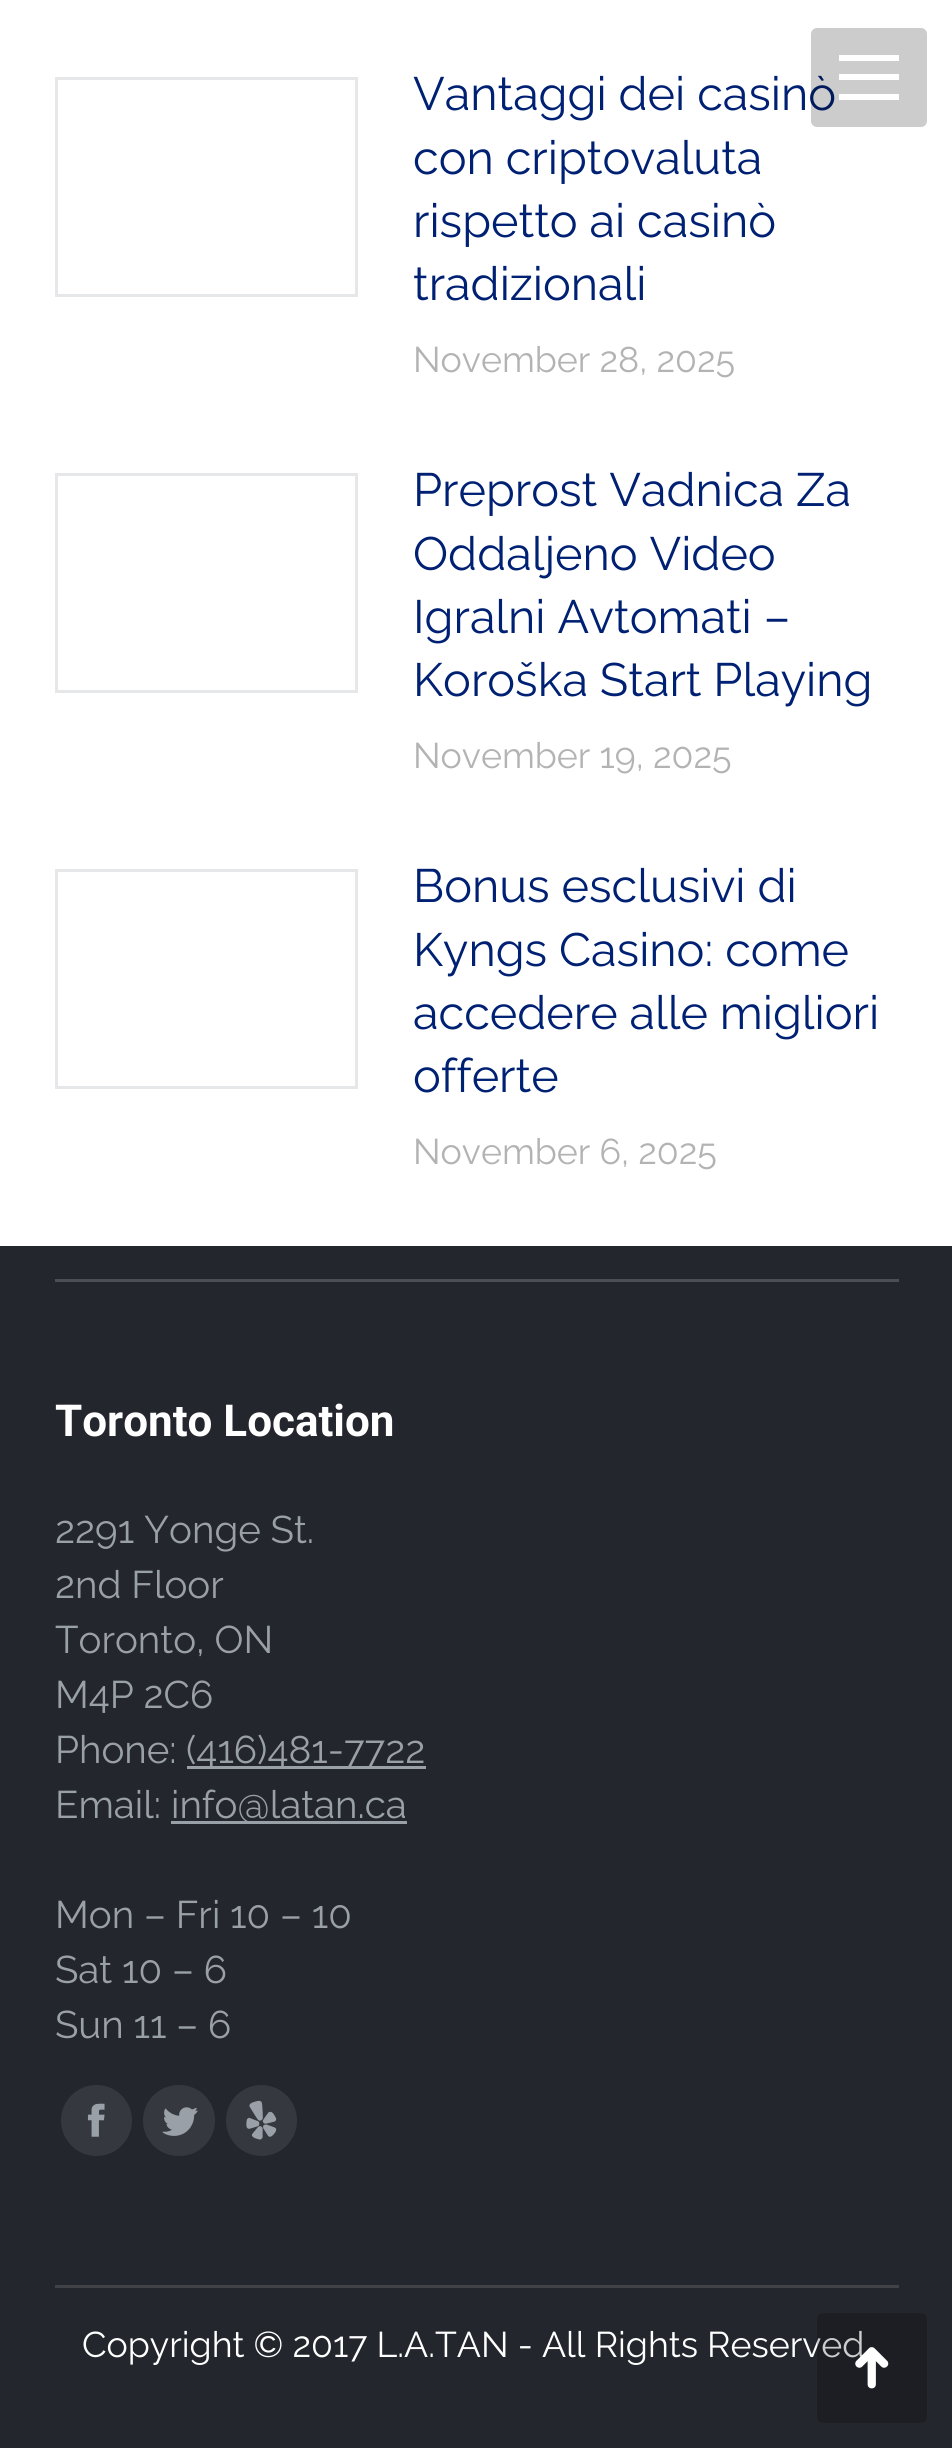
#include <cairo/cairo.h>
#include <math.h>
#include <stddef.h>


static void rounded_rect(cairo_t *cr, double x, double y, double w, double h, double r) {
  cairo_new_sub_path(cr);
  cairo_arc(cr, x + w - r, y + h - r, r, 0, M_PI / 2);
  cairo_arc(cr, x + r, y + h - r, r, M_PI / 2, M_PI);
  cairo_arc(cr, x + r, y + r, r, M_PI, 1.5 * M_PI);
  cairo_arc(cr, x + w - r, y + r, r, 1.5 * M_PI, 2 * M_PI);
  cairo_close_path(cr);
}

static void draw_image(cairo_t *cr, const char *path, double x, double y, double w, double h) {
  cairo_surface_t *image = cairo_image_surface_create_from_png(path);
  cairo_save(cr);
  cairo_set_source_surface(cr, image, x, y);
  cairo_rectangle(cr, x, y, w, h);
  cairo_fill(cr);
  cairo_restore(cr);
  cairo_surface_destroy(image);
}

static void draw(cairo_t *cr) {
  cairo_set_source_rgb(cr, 1, 1, 1);
  cairo_paint(cr);
  cairo_set_source_rgb(cr, 35 / 255.0, 38 / 255.0, 45 / 255.0);
  cairo_rectangle(cr, 0, 1246, 952, 1202);
  cairo_fill(cr);
  cairo_set_source_rgb(cr, 76 / 255.0, 79 / 255.0, 86 / 255.0);
  cairo_rectangle(cr, 55, 1279, 844, 3);
  cairo_fill(cr);
  cairo_rectangle(cr, 56.5, 78.5, 300, 217);
  cairo_set_source_rgb(cr, 230 / 255.0, 231 / 255.0, 233 / 255.0);
  cairo_set_line_width(cr, 3);
  cairo_stroke(cr);
  cairo_rectangle(cr, 56.5, 474.5, 300, 217);
  cairo_stroke(cr);
  cairo_rectangle(cr, 56.5, 870.5, 300, 217);
  cairo_stroke(cr);
  cairo_set_source_rgb(cr, 154 / 255.0, 160 / 255.0, 167 / 255.0);
  cairo_rectangle(cr, 187, 1766, 239, 3);
  cairo_fill(cr);
  cairo_rectangle(cr, 171, 1821, 236, 3);
  cairo_fill(cr);
  cairo_set_source_rgb(cr, 53 / 255.0, 56 / 255.0, 63 / 255.0);
  cairo_arc(cr, 96.5, 2120.5, 35.5, 0, 2 * M_PI);
  cairo_fill(cr);
  draw_image(cr, "images/1.png", 87, 2103, 18, 34);
  rounded_rect(cr, 143, 2085, 72, 71, 35.5);
  cairo_fill(cr);
  draw_image(cr, "images/2.png", 162, 2107, 36, 29);
  cairo_arc(cr, 261.5, 2120.5, 35.5, 0, 2 * M_PI);
  cairo_fill(cr);
  draw_image(cr, "images/3.png", 246, 2100, 31, 40);
  cairo_set_source_rgb(cr, 64 / 255.0, 66 / 255.0, 72 / 255.0);
  cairo_rectangle(cr, 55, 2285, 844, 3);
  cairo_fill(cr);
  cairo_select_font_face(cr, "Raleway", CAIRO_FONT_SLANT_NORMAL, CAIRO_FONT_WEIGHT_NORMAL);
  cairo_set_font_size(cr, 46.75);
  cairo_set_source_rgb(cr, 0, 33 / 255.0, 115 / 255.0);
  cairo_move_to(cr, 413, 110);
  cairo_show_text(cr, "Vantaggi dei casinò");
  cairo_set_source_rgba(cr, 0, 0, 0, 0.2);
  rounded_rect(cr, 811, 28, 116, 99, 6);
  cairo_fill(cr);
  cairo_set_source_rgb(cr, 1, 1, 1);
  cairo_rectangle(cr, 839, 94, 60, 6);
  cairo_fill(cr);
  cairo_rectangle(cr, 839, 74, 60, 6);
  cairo_fill(cr);
  cairo_rectangle(cr, 839, 55, 60, 6);
  cairo_fill(cr);
  cairo_set_source_rgb(cr, 0, 33 / 255.0, 115 / 255.0);
  cairo_move_to(cr, 413, 174);
  cairo_show_text(cr, "con criptovaluta");
  cairo_move_to(cr, 413, 237);
  cairo_show_text(cr, "rispetto ai casinò");
  cairo_move_to(cr, 413, 300);
  cairo_show_text(cr, "tradizionali");
  cairo_set_font_size(cr, 35.75);
  cairo_set_source_rgb(cr, 179 / 255.0, 179 / 255.0, 179 / 255.0);
  cairo_move_to(cr, 413, 372);
  cairo_show_text(cr, "November 28, 2025");
  cairo_set_font_size(cr, 46.75);
  cairo_set_source_rgb(cr, 0, 33 / 255.0, 115 / 255.0);
  cairo_move_to(cr, 413, 506);
  cairo_show_text(cr, "Preprost Vadnica Za");
  cairo_move_to(cr, 413, 570);
  cairo_show_text(cr, "Oddaljeno Video");
  cairo_move_to(cr, 413, 633);
  cairo_show_text(cr, "Igralni Avtomati –");
  cairo_move_to(cr, 413, 696);
  cairo_show_text(cr, "Koroška Start Playing");
  cairo_set_font_size(cr, 35.75);
  cairo_set_source_rgb(cr, 179 / 255.0, 179 / 255.0, 179 / 255.0);
  cairo_move_to(cr, 413, 768);
  cairo_show_text(cr, "November 19, 2025");
  cairo_set_font_size(cr, 46.75);
  cairo_set_source_rgb(cr, 0, 33 / 255.0, 115 / 255.0);
  cairo_move_to(cr, 413, 902);
  cairo_show_text(cr, "Bonus esclusivi di");
  cairo_move_to(cr, 413, 966);
  cairo_show_text(cr, "Kyngs Casino: come");
  cairo_move_to(cr, 413, 1029);
  cairo_show_text(cr, "accedere alle migliori");
  cairo_move_to(cr, 413, 1092);
  cairo_show_text(cr, "offerte");
  cairo_set_font_size(cr, 35.75);
  cairo_set_source_rgb(cr, 179 / 255.0, 179 / 255.0, 179 / 255.0);
  cairo_move_to(cr, 413, 1164);
  cairo_show_text(cr, "November 6, 2025");
  cairo_select_font_face(cr, "Roboto", CAIRO_FONT_SLANT_NORMAL, CAIRO_FONT_WEIGHT_BOLD);
  cairo_set_font_size(cr, 44);
  cairo_set_source_rgb(cr, 1, 1, 1);
  cairo_move_to(cr, 55, 1436);
  cairo_show_text(cr, "Toronto Location");
  cairo_select_font_face(cr, "Raleway", CAIRO_FONT_SLANT_NORMAL, CAIRO_FONT_WEIGHT_NORMAL);
  cairo_set_font_size(cr, 38.5);
  cairo_set_source_rgb(cr, 154 / 255.0, 160 / 255.0, 167 / 255.0);
  cairo_move_to(cr, 55, 1543);
  cairo_show_text(cr, "2291 Yonge St.");
  cairo_move_to(cr, 55, 1598);
  cairo_show_text(cr, "2nd Floor");
  cairo_move_to(cr, 55, 1653);
  cairo_show_text(cr, "Toronto, ON");
  cairo_move_to(cr, 55, 1708);
  cairo_show_text(cr, "M4P 2C6");
  cairo_move_to(cr, 55, 1763);
  cairo_show_text(cr, "Phone:");
  cairo_move_to(cr, 186, 1763);
  cairo_show_text(cr, "(416)481-7722");
  cairo_move_to(cr, 55, 1818);
  cairo_show_text(cr, "Email:");
  cairo_move_to(cr, 171, 1818);
  cairo_show_text(cr, "info@latan.ca");
  cairo_move_to(cr, 55, 1928);
  cairo_show_text(cr, "Mon – Fri 10 – 10");
  cairo_move_to(cr, 55, 1983);
  cairo_show_text(cr, "Sat 10 – 6");
  cairo_move_to(cr, 55, 2038);
  cairo_show_text(cr, "Sun 11 – 6");
  cairo_set_font_size(cr, 35.75);
  cairo_set_source_rgb(cr, 1, 1, 1);
  cairo_move_to(cr, 82, 2357);
  cairo_show_text(cr, "Copyright © 2017 L.A.TAN - All Rights Reserved");
  cairo_set_source_rgba(cr, 0, 0, 0, 0.2);
  rounded_rect(cr, 817, 2313, 110, 110, 6);
  cairo_fill(cr);
  draw_image(cr, "images/4.png", 855, 2347, 34, 42);
}

int main(void) {
  cairo_surface_t *surface = cairo_image_surface_create(CAIRO_FORMAT_RGB24, 952, 2448);
  cairo_t *cr = cairo_create(surface);
  cairo_font_options_t *options = cairo_font_options_create();
  cairo_font_options_set_hint_metrics(options, CAIRO_HINT_METRICS_OFF);
  cairo_font_options_set_hint_style(options, CAIRO_HINT_STYLE_NONE);
  cairo_set_font_options(cr, options);
  cairo_set_miter_limit(cr, 4);
  draw(cr);
  cairo_surface_write_to_png(surface, "out.png");
  cairo_font_options_destroy(options);
  cairo_destroy(cr);
  cairo_surface_destroy(surface);
  return 0;
}
